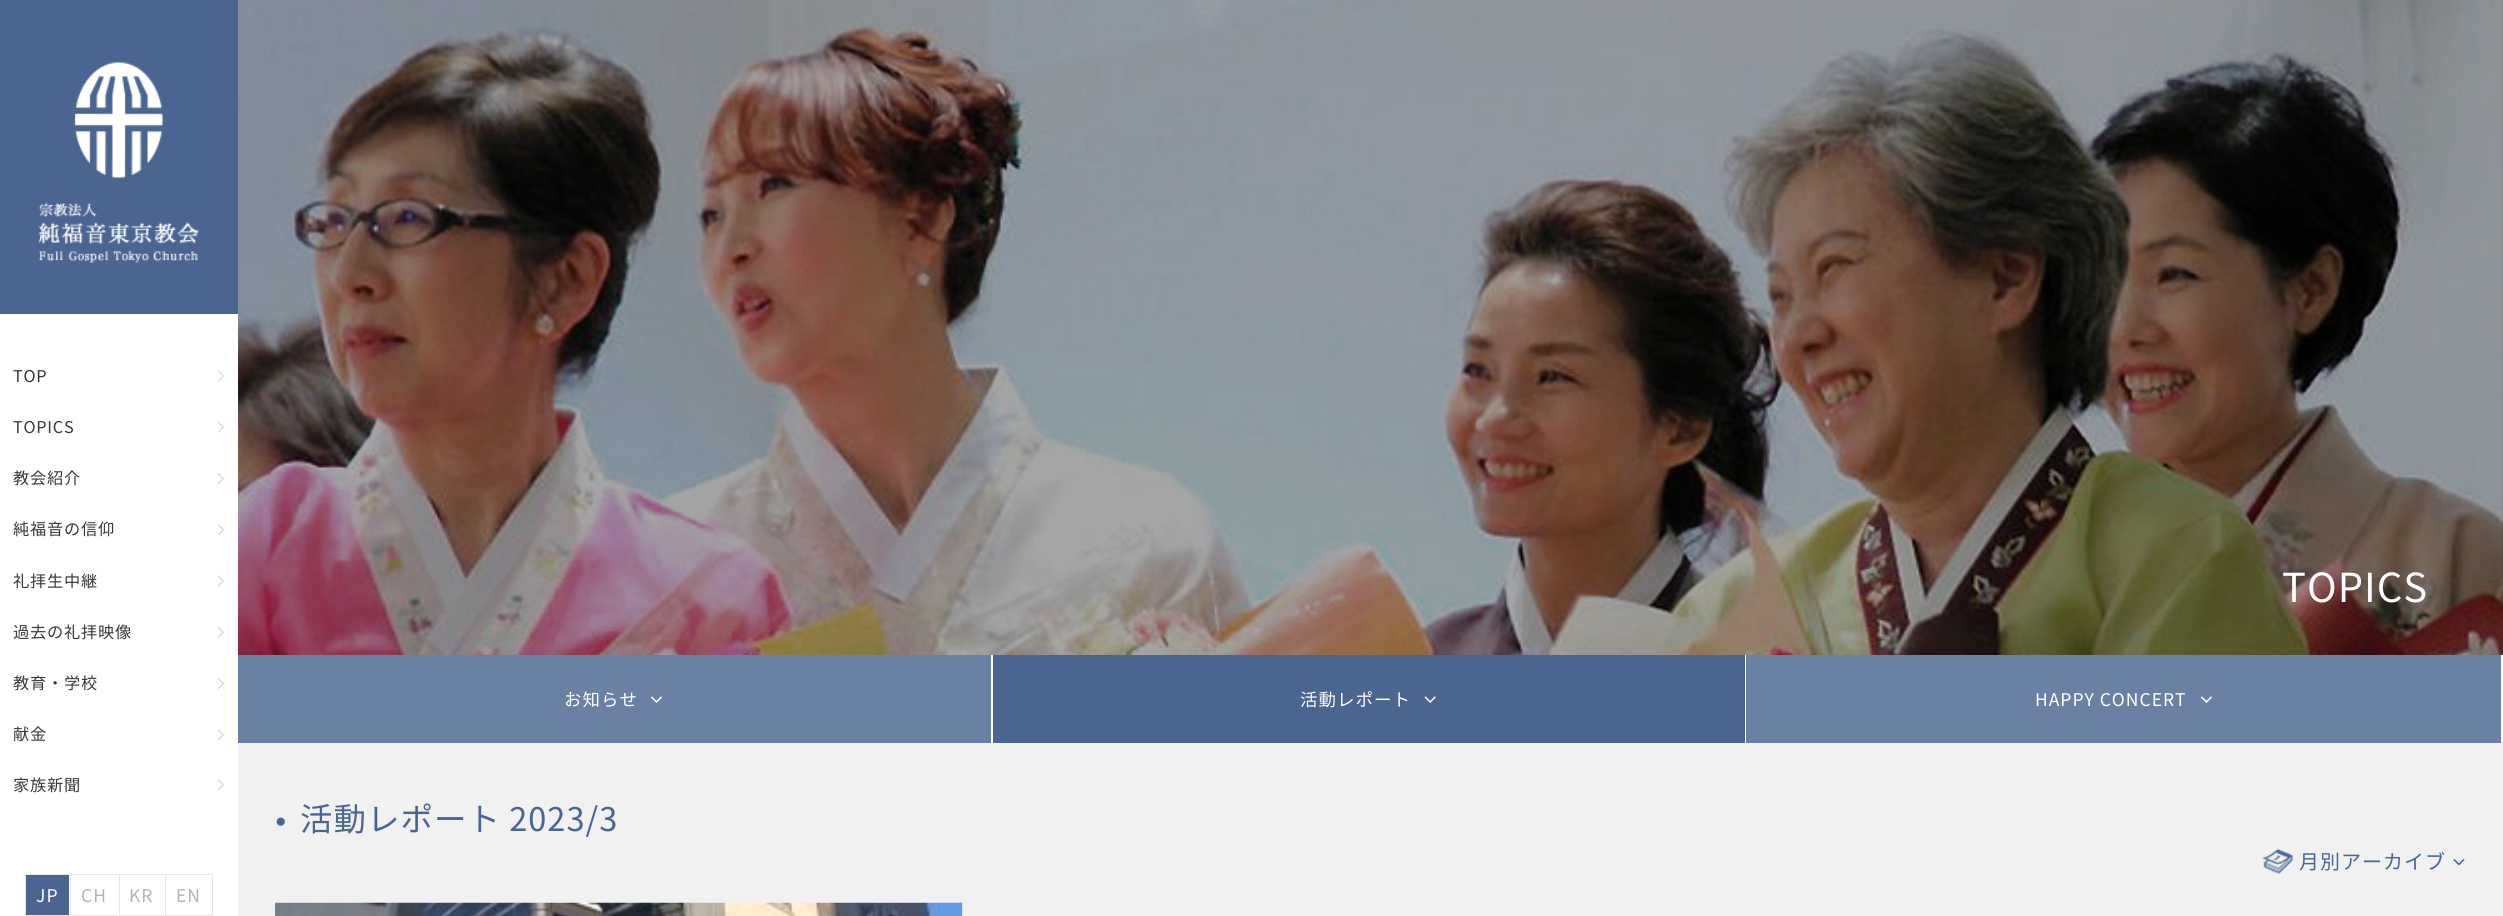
#include <cairo/cairo.h>
#include <math.h>
#include <stddef.h>


static void draw_spaced(cairo_t *cr, double x, double y, const char *s, double letter, double word) {
  cairo_move_to(cr, x, y);
  while (*s) {
    char ch[5] = {0};
    int n = 0;
    do ch[n++] = *s++; while ((*s & 0xC0) == 0x80);
    cairo_show_text(cr, ch);
    cairo_rel_move_to(cr, letter + word * (*ch == ' '), 0);
  }
}

static void draw_image(cairo_t *cr, const char *path, double x, double y, double w, double h) {
  cairo_surface_t *image = cairo_image_surface_create_from_png(path);
  cairo_save(cr);
  cairo_set_source_surface(cr, image, x, y);
  cairo_rectangle(cr, x, y, w, h);
  cairo_fill(cr);
  cairo_restore(cr);
  cairo_surface_destroy(image);
}

static void draw(cairo_t *cr) {
  cairo_set_source_rgb(cr, 1, 1, 1);
  cairo_paint(cr);
  cairo_set_source_rgb(cr, 74 / 255.0, 101 / 255.0, 144 / 255.0);
  cairo_rectangle(cr, 0, 0, 238, 314);
  cairo_fill(cr);
  draw_image(cr, "images/1.png", 38, 62, 161, 201);
  draw_image(cr, "images/2.png", 217, 370, 7, 12);
  draw_image(cr, "images/3.png", 217, 422, 7, 11);
  draw_image(cr, "images/4.png", 217, 473, 7, 11);
  draw_image(cr, "images/5.png", 217, 524, 7, 12);
  draw_image(cr, "images/2.png", 217, 575, 7, 12);
  draw_image(cr, "images/3.png", 217, 627, 7, 11);
  draw_image(cr, "images/4.png", 217, 678, 7, 11);
  draw_image(cr, "images/5.png", 217, 729, 7, 12);
  draw_image(cr, "images/5.png", 217, 779, 7, 12);
  cairo_set_source_rgb(cr, 230 / 255.0, 230 / 255.0, 230 / 255.0);
  cairo_rectangle(cr, 25, 874, 44, 1);
  cairo_fill(cr);
  cairo_rectangle(cr, 25, 915, 44, 1);
  cairo_fill(cr);
  cairo_rectangle(cr, 25, 874, 1, 42);
  cairo_fill(cr);
  cairo_set_source_rgb(cr, 74 / 255.0, 101 / 255.0, 144 / 255.0);
  cairo_rectangle(cr, 26, 875, 43, 40);
  cairo_fill(cr);
  cairo_set_source_rgb(cr, 230 / 255.0, 230 / 255.0, 230 / 255.0);
  cairo_rectangle(cr, 70, 874, 48, 1);
  cairo_fill(cr);
  cairo_rectangle(cr, 70, 915, 48, 1);
  cairo_fill(cr);
  cairo_rectangle(cr, 70, 874, 1, 42);
  cairo_fill(cr);
  cairo_rectangle(cr, 119, 874, 45, 1);
  cairo_fill(cr);
  cairo_rectangle(cr, 119, 915, 45, 1);
  cairo_fill(cr);
  cairo_rectangle(cr, 119, 874, 1, 42);
  cairo_fill(cr);
  cairo_rectangle(cr, 165.5, 874.5, 47, 41);
  cairo_set_line_width(cr, 1);
  cairo_stroke(cr);
  draw_image(cr, "images/6.png", 238, 0, 2265, 655);
  cairo_set_source_rgb(cr, 107 / 255.0, 129 / 255.0, 164 / 255.0);
  cairo_rectangle(cr, 238, 655, 753, 88);
  cairo_fill(cr);
  draw_image(cr, "images/7.png", 650, 696, 12, 7);
  cairo_set_source_rgb(cr, 74 / 255.0, 101 / 255.0, 144 / 255.0);
  cairo_rectangle(cr, 993, 655, 752, 88);
  cairo_fill(cr);
  draw_image(cr, "images/8.png", 1424, 696, 12, 7);
  cairo_set_source_rgb(cr, 107 / 255.0, 129 / 255.0, 164 / 255.0);
  cairo_rectangle(cr, 1746, 655, 755, 88);
  cairo_fill(cr);
  draw_image(cr, "images/7.png", 2200, 696, 12, 7);
  cairo_set_source_rgb(cr, 241 / 255.0, 241 / 255.0, 241 / 255.0);
  cairo_rectangle(cr, 238, 743, 2265, 173);
  cairo_fill(cr);
  draw_image(cr, "images/9.png", 2262, 848, 31, 26);
  draw_image(cr, "images/10.png", 2453, 859, 12, 7);
  cairo_set_source_rgb(cr, 1, 1, 1);
  cairo_rectangle(cr, 962, 903, 1, 13);
  cairo_fill(cr);
  draw_image(cr, "images/11.png", 275, 902, 688, 14);
  cairo_select_font_face(cr, "Noto Sans JP", CAIRO_FONT_SLANT_NORMAL, CAIRO_FONT_WEIGHT_NORMAL);
  cairo_set_font_size(cr, 16.25);
  cairo_set_source_rgb(cr, 56 / 255.0, 56 / 255.0, 56 / 255.0);
  draw_spaced(cr, 13, 382, "TOP", 0.75, 0);
  draw_spaced(cr, 13, 433, "TOPICS", 0.75, 0);
  draw_spaced(cr, 13, 484, "教会紹介", 0.75, 0);
  draw_spaced(cr, 13, 535, "純福音の信仰", 0.75, 0);
  draw_spaced(cr, 13, 587, "礼拝生中継", 0.75, 0);
  draw_spaced(cr, 13, 638, "過去の礼拝映像", 0.75, 0);
  draw_spaced(cr, 13, 689, "教育・学校", 0.75, 0);
  draw_spaced(cr, 13, 740, "献金", 0.75, 0);
  draw_spaced(cr, 13, 791, "家族新聞", 0.75, 0);
  cairo_set_font_size(cr, 17.5);
  cairo_set_source_rgb(cr, 1, 1, 1);
  draw_spaced(cr, 36, 902, "JP", 1, 0);
  cairo_set_source_rgb(cr, 181 / 255.0, 181 / 255.0, 181 / 255.0);
  draw_spaced(cr, 81, 902, "CH", 1, 0);
  draw_spaced(cr, 129, 902, "KR", 1, 0);
  draw_spaced(cr, 176, 902, "EN", 1, 0);
  cairo_set_font_size(cr, 40);
  cairo_set_source_rgb(cr, 1, 1, 1);
  draw_spaced(cr, 2282, 602, "TOPICS", 1, 0);
  cairo_set_font_size(cr, 17.5);
  draw_spaced(cr, 564, 706, "お知らせ", 1, 0);
  draw_spaced(cr, 1300, 706, "活動レポート", 1, 0);
  draw_spaced(cr, 2035, 706, "HAPPY CONCERT", 1, 0);
  cairo_select_font_face(cr, "Liberation Sans", CAIRO_FONT_SLANT_NORMAL, CAIRO_FONT_WEIGHT_NORMAL);
  cairo_set_font_size(cr, 19);
  cairo_set_source_rgb(cr, 74 / 255.0, 101 / 255.0, 144 / 255.0);
  draw_spaced(cr, 275, 827, "●", 1, 0);
  cairo_select_font_face(cr, "Noto Sans JP", CAIRO_FONT_SLANT_NORMAL, CAIRO_FONT_WEIGHT_NORMAL);
  cairo_set_font_size(cr, 32.5);
  draw_spaced(cr, 300, 831, "活動レポート 2023/3", 1, 0);
  cairo_set_font_size(cr, 20);
  draw_spaced(cr, 2299, 869, "月別アーカイブ", 1, 0);
}

int main(void) {
  cairo_surface_t *surface = cairo_image_surface_create(CAIRO_FORMAT_RGB24, 2503, 916);
  cairo_t *cr = cairo_create(surface);
  cairo_font_options_t *options = cairo_font_options_create();
  cairo_font_options_set_hint_metrics(options, CAIRO_HINT_METRICS_OFF);
  cairo_font_options_set_hint_style(options, CAIRO_HINT_STYLE_NONE);
  cairo_set_font_options(cr, options);
  cairo_set_miter_limit(cr, 4);
  draw(cr);
  cairo_surface_write_to_png(surface, "out.png");
  cairo_font_options_destroy(options);
  cairo_destroy(cr);
  cairo_surface_destroy(surface);
  return 0;
}
